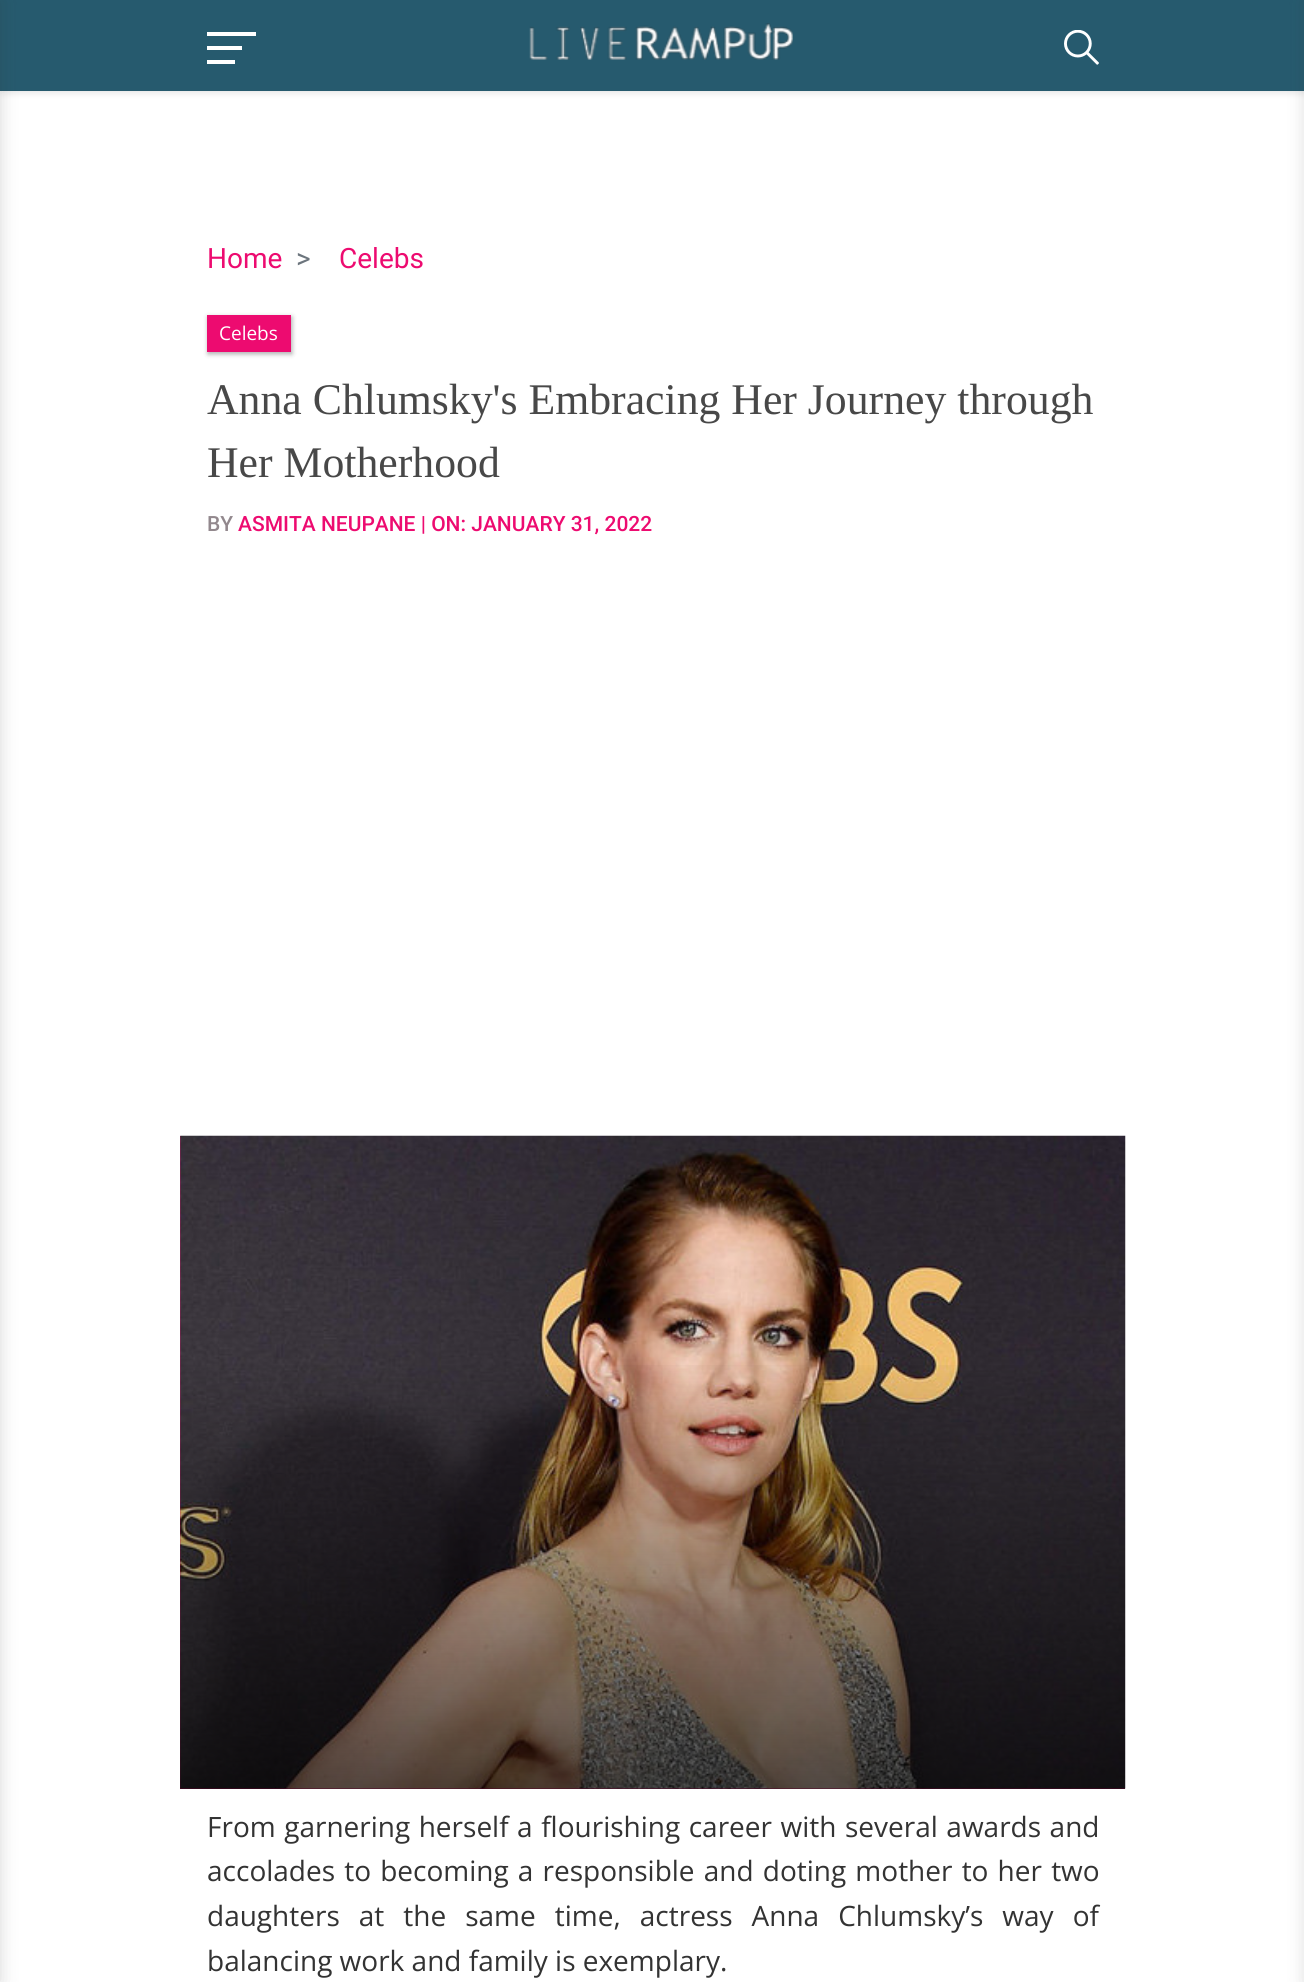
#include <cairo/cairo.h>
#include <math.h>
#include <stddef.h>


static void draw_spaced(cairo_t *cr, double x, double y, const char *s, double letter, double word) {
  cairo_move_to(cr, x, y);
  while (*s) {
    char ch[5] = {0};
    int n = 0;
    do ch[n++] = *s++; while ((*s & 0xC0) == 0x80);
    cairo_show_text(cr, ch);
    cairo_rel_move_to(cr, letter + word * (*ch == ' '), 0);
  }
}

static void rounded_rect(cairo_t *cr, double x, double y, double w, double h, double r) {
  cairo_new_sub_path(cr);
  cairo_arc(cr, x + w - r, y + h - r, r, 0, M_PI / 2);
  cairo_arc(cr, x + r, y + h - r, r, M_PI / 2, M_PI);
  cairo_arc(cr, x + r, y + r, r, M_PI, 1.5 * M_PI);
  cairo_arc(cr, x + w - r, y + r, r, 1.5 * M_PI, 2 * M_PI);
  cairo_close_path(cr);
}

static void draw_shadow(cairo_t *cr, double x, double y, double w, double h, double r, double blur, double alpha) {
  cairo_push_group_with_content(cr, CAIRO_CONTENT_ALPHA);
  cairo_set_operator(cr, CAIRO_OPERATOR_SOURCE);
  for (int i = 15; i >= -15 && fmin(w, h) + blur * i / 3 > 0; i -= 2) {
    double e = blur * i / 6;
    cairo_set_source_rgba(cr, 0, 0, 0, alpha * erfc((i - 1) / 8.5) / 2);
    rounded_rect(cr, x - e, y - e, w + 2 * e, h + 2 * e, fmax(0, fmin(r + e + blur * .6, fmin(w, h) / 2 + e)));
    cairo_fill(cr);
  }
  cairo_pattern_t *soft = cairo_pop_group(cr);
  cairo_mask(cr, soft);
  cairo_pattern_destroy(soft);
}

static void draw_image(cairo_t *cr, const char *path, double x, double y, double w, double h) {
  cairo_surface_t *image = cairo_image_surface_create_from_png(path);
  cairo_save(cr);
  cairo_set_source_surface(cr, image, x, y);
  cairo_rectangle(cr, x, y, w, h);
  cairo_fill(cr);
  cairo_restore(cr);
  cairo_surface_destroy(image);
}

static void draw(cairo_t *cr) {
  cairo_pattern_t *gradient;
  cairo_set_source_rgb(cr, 1, 1, 1);
  cairo_paint(cr);
  cairo_set_source_rgb(cr, 0, 0, 0);
  draw_shadow(cr, 2, 0, 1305, 91, 0, 4.5, 0.15);
  cairo_set_source_rgb(cr, 38 / 255.0, 90 / 255.0, 110 / 255.0);
  cairo_rectangle(cr, 0, 0, 1304, 91);
  cairo_fill(cr);
  cairo_set_source_rgb(cr, 1, 1, 1);
  cairo_rectangle(cr, 207, 32, 49, 4);
  cairo_fill(cr);
  cairo_rectangle(cr, 207, 46, 35, 4);
  cairo_fill(cr);
  cairo_rectangle(cr, 207, 60, 28, 4);
  cairo_fill(cr);
  draw_image(cr, "images/1.png", 529, 23, 264, 37);
  draw_image(cr, "images/2.png", 1064, 30, 35, 35);
  cairo_set_source_rgb(cr, 50 / 255.0, 50 / 255.0, 50 / 255.0);
  draw_shadow(cr, -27, 0, 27, 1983, 0, 9, 0.2);
  cairo_set_source_rgb(cr, 0, 0, 0);
  draw_shadow(cr, 208, 317, 84, 37, 0, 2.5, 0.33);
  cairo_set_source_rgb(cr, 237 / 255.0, 11 / 255.0, 112 / 255.0);
  cairo_rectangle(cr, 207, 315, 84, 37);
  cairo_fill(cr);
  cairo_rectangle(cr, 180, 1136, 945, 653);
  cairo_fill(cr);
  draw_image(cr, "images/3.png", 180, 1135, 946, 654);
  gradient = cairo_pattern_create_linear(653, 1351, 653, 1789);
  cairo_pattern_add_color_stop_rgba(gradient, 0, 0, 0, 0, 0);
  cairo_pattern_add_color_stop_rgba(gradient, 0.99, 0, 0, 0, 0.65);
  cairo_pattern_add_color_stop_rgba(gradient, 1, 0, 0, 0, 0.65);
  cairo_set_source(cr, gradient);
  cairo_pattern_destroy(gradient);
  cairo_rectangle(cr, 180, 1365, 945, 424);
  cairo_fill(cr);
  cairo_set_source_rgb(cr, 50 / 255.0, 50 / 255.0, 50 / 255.0);
  draw_shadow(cr, 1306, 0, 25, 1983, 0, 9, 0.2);
  cairo_select_font_face(cr, "Roboto", CAIRO_FONT_SLANT_NORMAL, CAIRO_FONT_WEIGHT_NORMAL);
  cairo_set_font_size(cr, 28);
  cairo_set_source_rgb(cr, 237 / 255.0, 11 / 255.0, 112 / 255.0);
  cairo_move_to(cr, 207, 268);
  cairo_show_text(cr, "Home");
  cairo_set_source_rgb(cr, 108 / 255.0, 117 / 255.0, 125 / 255.0);
  cairo_move_to(cr, 296, 268);
  cairo_show_text(cr, ">");
  cairo_set_source_rgb(cr, 237 / 255.0, 11 / 255.0, 112 / 255.0);
  cairo_move_to(cr, 339, 268);
  cairo_show_text(cr, "Celebs");
  cairo_select_font_face(cr, "Open Sans", CAIRO_FONT_SLANT_NORMAL, CAIRO_FONT_WEIGHT_NORMAL);
  cairo_set_font_size(cr, 19);
  cairo_set_source_rgb(cr, 1, 1, 1);
  cairo_move_to(cr, 219, 340);
  cairo_show_text(cr, "Celebs");
  cairo_select_font_face(cr, "Liberation Serif", CAIRO_FONT_SLANT_NORMAL, CAIRO_FONT_WEIGHT_NORMAL);
  cairo_set_font_size(cr, 43.75);
  cairo_set_source_rgb(cr, 72 / 255.0, 72 / 255.0, 72 / 255.0);
  cairo_move_to(cr, 207, 414);
  cairo_show_text(cr, "Anna Chlumsky's Embracing Her Journey through");
  cairo_move_to(cr, 207, 477);
  cairo_show_text(cr, "Her Motherhood");
  cairo_select_font_face(cr, "Roboto Medium", CAIRO_FONT_SLANT_NORMAL, CAIRO_FONT_WEIGHT_NORMAL);
  cairo_set_font_size(cr, 21);
  cairo_set_source_rgb(cr, 146 / 255.0, 136 / 255.0, 141 / 255.0);
  cairo_move_to(cr, 207, 531);
  cairo_show_text(cr, "BY");
  cairo_set_source_rgb(cr, 237 / 255.0, 11 / 255.0, 112 / 255.0);
  cairo_move_to(cr, 238, 531);
  cairo_show_text(cr, "ASMITA NEUPANE | ON: JANUARY 31, 2022");
  cairo_select_font_face(cr, "Open Sans", CAIRO_FONT_SLANT_NORMAL, CAIRO_FONT_WEIGHT_NORMAL);
  cairo_set_font_size(cr, 28);
  cairo_set_source_rgb(cr, 51 / 255.0, 51 / 255.0, 51 / 255.0);
  draw_spaced(cr, 207, 1837, "From garnering herself a flourishing career with several awards and", 0, 1.25);
  draw_spaced(cr, 207, 1881, "accolades to becoming a responsible and doting mother to her two", 0, 1.9);
  draw_spaced(cr, 207, 1926, "daughters at the same time, actress Anna Chlumsky’s way of", 0, 11.75);
  cairo_move_to(cr, 207, 1971);
  cairo_show_text(cr, "balancing work and family is exemplary.");
}

int main(void) {
  cairo_surface_t *surface = cairo_image_surface_create(CAIRO_FORMAT_RGB24, 1304, 1982);
  cairo_t *cr = cairo_create(surface);
  cairo_font_options_t *options = cairo_font_options_create();
  cairo_font_options_set_hint_metrics(options, CAIRO_HINT_METRICS_OFF);
  cairo_font_options_set_hint_style(options, CAIRO_HINT_STYLE_NONE);
  cairo_set_font_options(cr, options);
  cairo_set_miter_limit(cr, 4);
  draw(cr);
  cairo_surface_write_to_png(surface, "out.png");
  cairo_font_options_destroy(options);
  cairo_destroy(cr);
  cairo_surface_destroy(surface);
  return 0;
}
